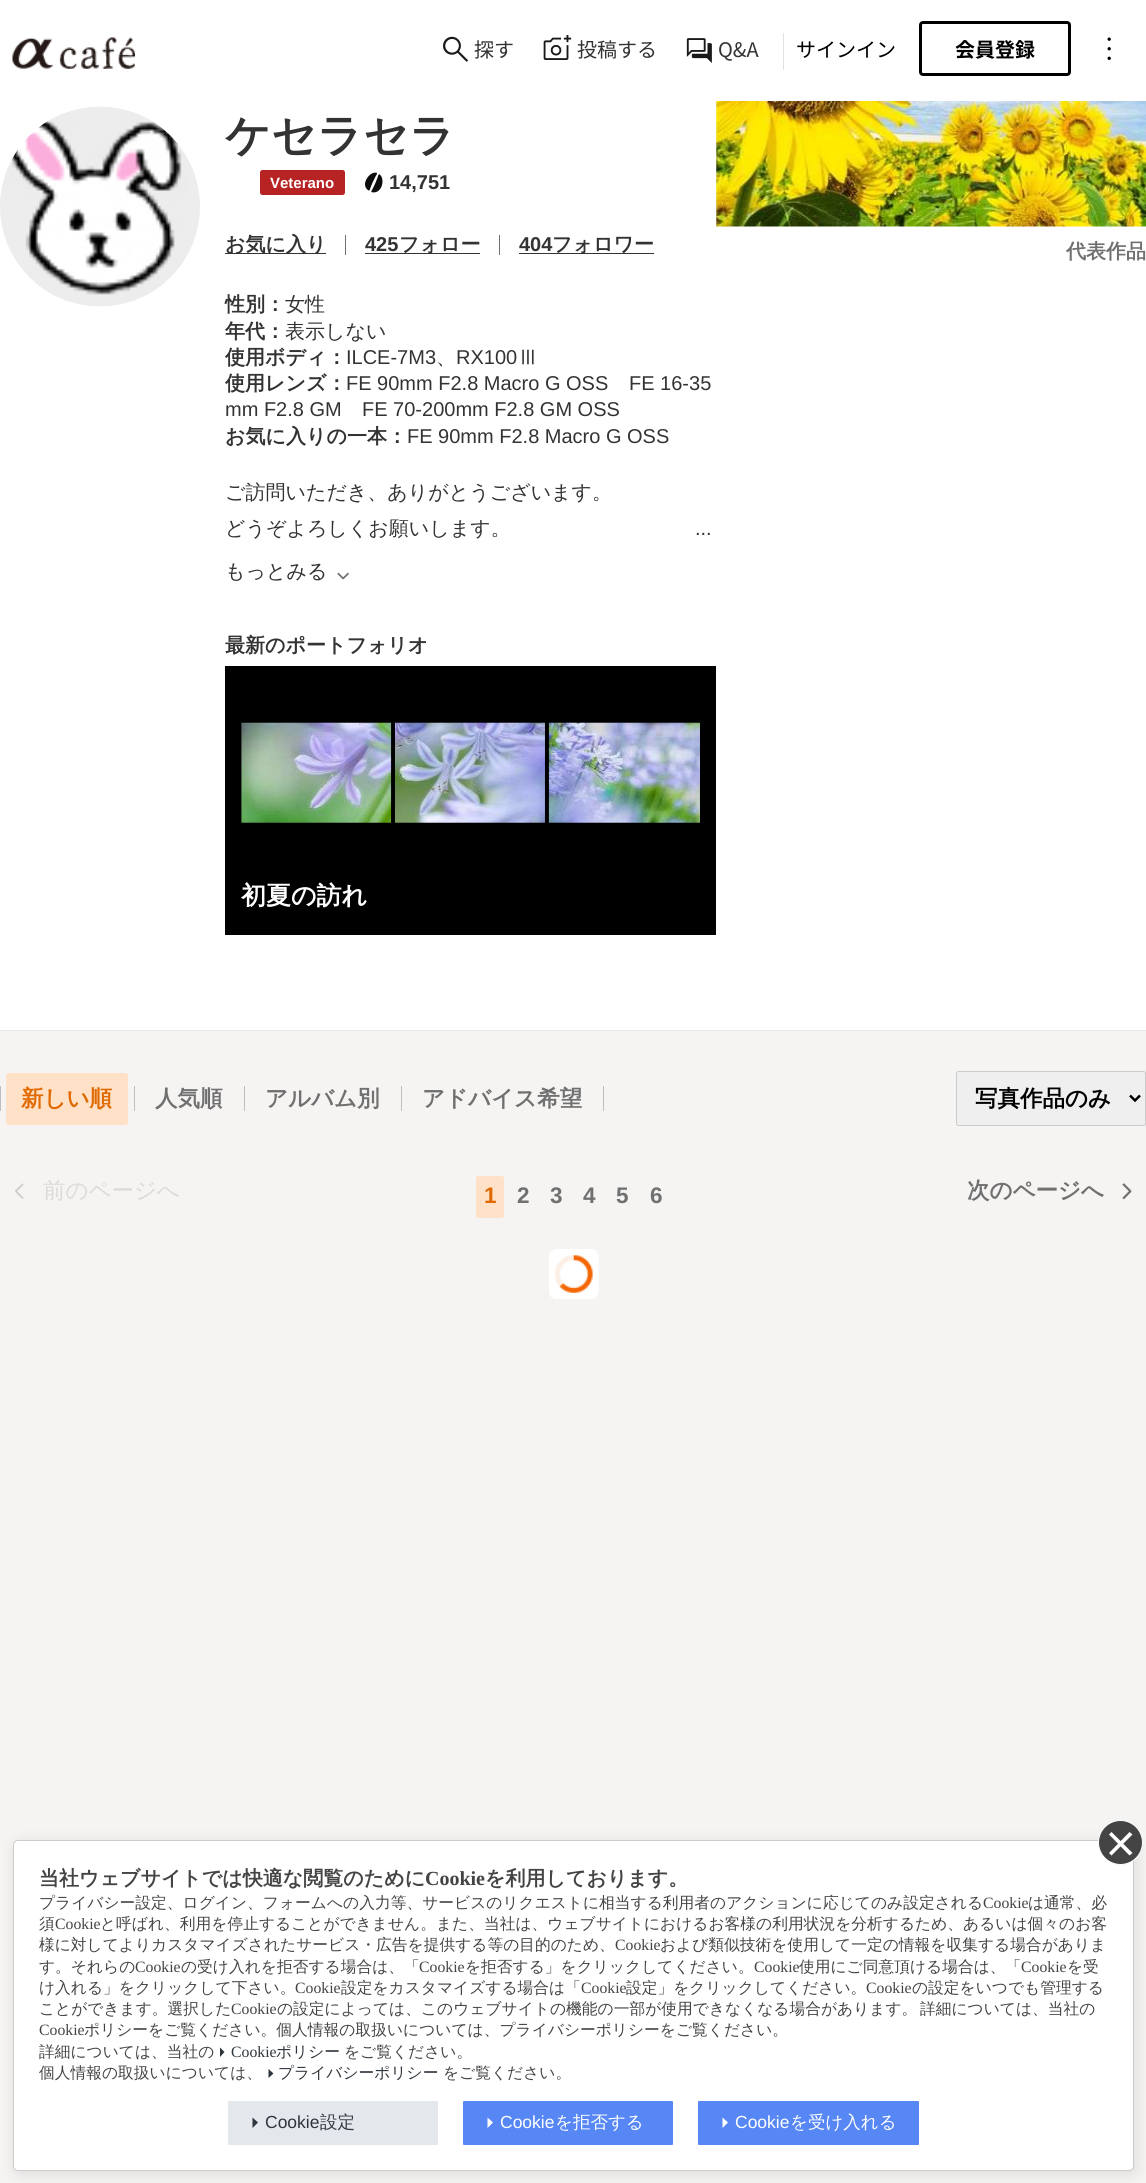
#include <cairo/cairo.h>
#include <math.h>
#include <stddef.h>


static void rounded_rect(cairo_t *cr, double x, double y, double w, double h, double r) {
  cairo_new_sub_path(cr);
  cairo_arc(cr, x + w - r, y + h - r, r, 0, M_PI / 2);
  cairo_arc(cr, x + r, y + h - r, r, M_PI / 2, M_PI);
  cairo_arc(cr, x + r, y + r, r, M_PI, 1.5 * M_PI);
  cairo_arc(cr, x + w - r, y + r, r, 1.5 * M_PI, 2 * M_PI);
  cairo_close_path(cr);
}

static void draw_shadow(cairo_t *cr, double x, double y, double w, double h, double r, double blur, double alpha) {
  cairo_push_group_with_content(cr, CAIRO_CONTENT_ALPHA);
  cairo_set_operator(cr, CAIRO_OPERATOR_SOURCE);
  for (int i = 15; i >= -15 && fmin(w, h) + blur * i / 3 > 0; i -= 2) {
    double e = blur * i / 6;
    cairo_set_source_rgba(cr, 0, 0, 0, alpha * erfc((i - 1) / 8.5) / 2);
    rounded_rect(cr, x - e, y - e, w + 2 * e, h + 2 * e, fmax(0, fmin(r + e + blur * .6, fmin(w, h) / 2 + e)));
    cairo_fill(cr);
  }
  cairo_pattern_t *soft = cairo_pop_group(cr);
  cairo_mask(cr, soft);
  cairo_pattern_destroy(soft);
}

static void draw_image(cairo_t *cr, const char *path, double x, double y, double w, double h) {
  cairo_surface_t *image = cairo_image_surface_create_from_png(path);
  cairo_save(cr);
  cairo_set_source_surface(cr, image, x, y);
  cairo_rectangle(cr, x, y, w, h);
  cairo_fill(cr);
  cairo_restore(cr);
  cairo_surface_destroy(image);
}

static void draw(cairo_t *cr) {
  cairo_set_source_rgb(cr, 246 / 255.0, 244 / 255.0, 243 / 255.0);
  cairo_paint(cr);
  cairo_set_source_rgb(cr, 1, 1, 1);
  cairo_rectangle(cr, 0, 0, 1146, 1030);
  cairo_fill(cr);
  draw_image(cr, "images/1.png", 12, 37, 123, 32);
  draw_image(cr, "images/2.png", 443, 36, 26, 26);
  draw_image(cr, "images/3.png", 543, 35, 29, 25);
  draw_image(cr, "images/4.png", 686, 38, 26, 25);
  cairo_set_source_rgb(cr, 226 / 255.0, 226 / 255.0, 226 / 255.0);
  cairo_rectangle(cr, 783, 33, 1, 37);
  cairo_fill(cr);
  rounded_rect(cr, 920.5, 22.5, 149, 52, 2.5);
  cairo_set_source_rgb(cr, 0, 0, 0);
  cairo_set_line_width(cr, 3);
  cairo_stroke(cr);
  draw_image(cr, "images/5.png", 1107, 37, 4, 23);
  draw_image(cr, "images/6.png", 0, 106, 200, 201);
  cairo_set_source_rgb(cr, 183 / 255.0, 35 / 255.0, 35 / 255.0);
  rounded_rect(cr, 260, 170, 85, 25, 2.5);
  cairo_fill(cr);
  draw_image(cr, "images/7.png", 365, 172, 18, 21);
  cairo_set_source_rgb(cr, 51 / 255.0, 51 / 255.0, 51 / 255.0);
  cairo_rectangle(cr, 225, 253, 101, 1);
  cairo_fill(cr);
  cairo_set_source_rgb(cr, 112 / 255.0, 112 / 255.0, 112 / 255.0);
  cairo_rectangle(cr, 345, 235, 1, 20);
  cairo_fill(cr);
  cairo_set_source_rgb(cr, 51 / 255.0, 51 / 255.0, 51 / 255.0);
  cairo_rectangle(cr, 365, 253, 115, 1);
  cairo_fill(cr);
  cairo_set_source_rgb(cr, 112 / 255.0, 112 / 255.0, 112 / 255.0);
  cairo_rectangle(cr, 499, 235, 1, 20);
  cairo_fill(cr);
  cairo_set_source_rgb(cr, 51 / 255.0, 51 / 255.0, 51 / 255.0);
  cairo_rectangle(cr, 519, 253, 135, 1);
  cairo_fill(cr);
  draw_image(cr, "images/8.png", 716, 101, 430, 126);
  draw_image(cr, "images/9.png", 337, 572, 12, 8);
  cairo_set_source_rgb(cr, 0, 0, 0);
  cairo_rectangle(cr, 225, 666, 491, 269);
  cairo_fill(cr);
  draw_image(cr, "images/10.png", 241, 722, 151, 101);
  draw_image(cr, "images/11.png", 395, 722, 150, 101);
  draw_image(cr, "images/12.png", 548, 722, 152, 101);
  cairo_set_source_rgb(cr, 232 / 255.0, 231 / 255.0, 230 / 255.0);
  cairo_rectangle(cr, 0, 1030, 1146, 1);
  cairo_fill(cr);
  cairo_set_source_rgb(cr, 192 / 255.0, 191 / 255.0, 191 / 255.0);
  cairo_rectangle(cr, 0, 1086, 1, 25);
  cairo_fill(cr);
  cairo_set_source_rgb(cr, 1, 225 / 255.0, 199 / 255.0);
  rounded_rect(cr, 6, 1073, 122, 52, 2.5);
  cairo_fill(cr);
  cairo_set_source_rgb(cr, 192 / 255.0, 191 / 255.0, 191 / 255.0);
  cairo_rectangle(cr, 134, 1086, 1, 25);
  cairo_fill(cr);
  cairo_rectangle(cr, 244, 1086, 1, 25);
  cairo_fill(cr);
  cairo_rectangle(cr, 401, 1086, 1, 25);
  cairo_fill(cr);
  cairo_rectangle(cr, 603, 1086, 1, 25);
  cairo_fill(cr);
  cairo_set_source_rgb(cr, 239 / 255.0, 239 / 255.0, 239 / 255.0);
  rounded_rect(cr, 956.5, 1071.5, 189, 54, 2);
  cairo_fill_preserve(cr);
  cairo_set_source_rgb(cr, 204 / 255.0, 204 / 255.0, 204 / 255.0);
  cairo_set_line_width(cr, 1);
  cairo_stroke(cr);
  cairo_new_path(cr);
  cairo_move_to(cr, 1130, 1095.5);
  cairo_line_to(cr, 1135, 1100.5);
  cairo_line_to(cr, 1140, 1095.5);
  cairo_set_source_rgb(cr, 0, 0, 0);
  cairo_set_line_width(cr, 2.5);
  cairo_stroke(cr);
  draw_image(cr, "images/13.png", 15, 1183, 9, 16);
  cairo_set_source_rgb(cr, 1, 225 / 255.0, 199 / 255.0);
  rounded_rect(cr, 476, 1176, 28, 42, 2.5);
  cairo_fill(cr);
  draw_image(cr, "images/14.png", 1122, 1183, 10, 17);
  draw_image(cr, "images/15.png", 549, 1249, 50, 50);
  cairo_set_source_rgb(cr, 0, 0, 0);
  draw_shadow(cr, 15, 1843, 1121, 331, 5, 7.5, 0.1);
  cairo_set_source_rgb(cr, 1, 1, 1);
  rounded_rect(cr, 13.5, 1840.5, 1120, 330, 4.5);
  cairo_fill_preserve(cr);
  cairo_set_source_rgb(cr, 204 / 255.0, 204 / 255.0, 204 / 255.0);
  cairo_set_line_width(cr, 1);
  cairo_stroke(cr);
  cairo_set_source_rgb(cr, 68 / 255.0, 68 / 255.0, 68 / 255.0);
  cairo_arc(cr, 1120.5, 1842.5, 22, 0, 2 * M_PI);
  cairo_fill_preserve(cr);
  cairo_set_source_rgb(cr, 1, 1, 1);
  cairo_stroke(cr);
  cairo_new_path(cr);
  cairo_move_to(cr, 1109, 1853);
  cairo_line_to(cr, 1129.5, 1832);
  cairo_line_to(cr, 1132.5, 1834.5);
  cairo_line_to(cr, 1111.5, 1855.5);
  cairo_close_path(cr);
  cairo_fill(cr);
  cairo_new_path(cr);
  cairo_move_to(cr, 1111.5, 1832);
  cairo_line_to(cr, 1132.5, 1853);
  cairo_line_to(cr, 1129.5, 1855.5);
  cairo_line_to(cr, 1109, 1834.5);
  cairo_close_path(cr);
  cairo_fill(cr);
  cairo_set_source_rgb(cr, 47 / 255.0, 53 / 255.0, 61 / 255.0);
  cairo_new_path(cr);
  cairo_move_to(cr, 220, 2047.5);
  cairo_line_to(cr, 224.5, 2052);
  cairo_line_to(cr, 220, 2057);
  cairo_close_path(cr);
  cairo_fill(cr);
  cairo_new_path(cr);
  cairo_move_to(cr, 268.5, 2069);
  cairo_line_to(cr, 273.5, 2073.5);
  cairo_line_to(cr, 268.5, 2078);
  cairo_close_path(cr);
  cairo_fill(cr);
  cairo_set_source_rgb(cr, 228 / 255.0, 231 / 255.0, 236 / 255.0);
  rounded_rect(cr, 228, 2101, 210, 44, 1);
  cairo_fill(cr);
  cairo_set_source_rgb(cr, 47 / 255.0, 53 / 255.0, 61 / 255.0);
  cairo_new_path(cr);
  cairo_move_to(cr, 252.5, 2117.5);
  cairo_line_to(cr, 258, 2122.5);
  cairo_line_to(cr, 252.5, 2128);
  cairo_close_path(cr);
  cairo_fill(cr);
  cairo_set_source_rgb(cr, 87 / 255.0, 135 / 255.0, 244 / 255.0);
  rounded_rect(cr, 463, 2101, 210, 44, 1);
  cairo_fill(cr);
  cairo_set_source_rgb(cr, 1, 1, 1);
  cairo_new_path(cr);
  cairo_move_to(cr, 487.5, 2117.5);
  cairo_line_to(cr, 493, 2122.5);
  cairo_line_to(cr, 487.5, 2128);
  cairo_close_path(cr);
  cairo_fill(cr);
  cairo_set_source_rgb(cr, 87 / 255.0, 135 / 255.0, 244 / 255.0);
  rounded_rect(cr, 698, 2101, 221, 44, 1);
  cairo_fill(cr);
  cairo_set_source_rgb(cr, 1, 1, 1);
  cairo_new_path(cr);
  cairo_move_to(cr, 722.5, 2117.5);
  cairo_line_to(cr, 728, 2122.5);
  cairo_line_to(cr, 722.5, 2128);
  cairo_close_path(cr);
  cairo_fill(cr);
  cairo_select_font_face(cr, "Noto Sans JP", CAIRO_FONT_SLANT_NORMAL, CAIRO_FONT_WEIGHT_NORMAL);
  cairo_set_font_size(cr, 20);
  cairo_set_source_rgb(cr, 51 / 255.0, 51 / 255.0, 51 / 255.0);
  cairo_move_to(cr, 474, 57);
  cairo_show_text(cr, "探す");
  cairo_move_to(cr, 577, 57);
  cairo_show_text(cr, "投稿する");
  cairo_move_to(cr, 718, 57);
  cairo_show_text(cr, "Q&A");
  cairo_set_source_rgb(cr, 0, 0, 0);
  cairo_move_to(cr, 796, 57);
  cairo_show_text(cr, "サインイン");
  cairo_select_font_face(cr, "Noto Sans JP", CAIRO_FONT_SLANT_NORMAL, CAIRO_FONT_WEIGHT_BOLD);
  cairo_move_to(cr, 955, 57);
  cairo_show_text(cr, "会員登録");
  cairo_select_font_face(cr, "WenQuanYi Zen Hei", CAIRO_FONT_SLANT_NORMAL, CAIRO_FONT_WEIGHT_BOLD);
  cairo_set_font_size(cr, 45);
  cairo_set_source_rgb(cr, 51 / 255.0, 51 / 255.0, 51 / 255.0);
  cairo_move_to(cr, 225, 151);
  cairo_show_text(cr, "ケセラセラ");
  cairo_select_font_face(cr, "Liberation Sans", CAIRO_FONT_SLANT_NORMAL, CAIRO_FONT_WEIGHT_BOLD);
  cairo_set_font_size(cr, 15);
  cairo_set_source_rgb(cr, 1, 1, 1);
  cairo_move_to(cr, 270, 188);
  cairo_show_text(cr, "Veterano");
  cairo_set_font_size(cr, 20);
  cairo_set_source_rgb(cr, 51 / 255.0, 51 / 255.0, 51 / 255.0);
  cairo_move_to(cr, 389, 189);
  cairo_show_text(cr, "14,751");
  cairo_select_font_face(cr, "WenQuanYi Zen Hei", CAIRO_FONT_SLANT_NORMAL, CAIRO_FONT_WEIGHT_BOLD);
  cairo_move_to(cr, 225, 251);
  cairo_show_text(cr, "お気に入り");
  cairo_select_font_face(cr, "Liberation Sans", CAIRO_FONT_SLANT_NORMAL, CAIRO_FONT_WEIGHT_BOLD);
  cairo_move_to(cr, 365, 251);
  cairo_show_text(cr, "425");
  cairo_select_font_face(cr, "WenQuanYi Zen Hei", CAIRO_FONT_SLANT_NORMAL, CAIRO_FONT_WEIGHT_BOLD);
  cairo_move_to(cr, 399, 251);
  cairo_show_text(cr, "フォロー");
  cairo_select_font_face(cr, "Liberation Sans", CAIRO_FONT_SLANT_NORMAL, CAIRO_FONT_WEIGHT_BOLD);
  cairo_move_to(cr, 519, 251);
  cairo_show_text(cr, "404");
  cairo_select_font_face(cr, "WenQuanYi Zen Hei", CAIRO_FONT_SLANT_NORMAL, CAIRO_FONT_WEIGHT_BOLD);
  cairo_move_to(cr, 552, 251);
  cairo_show_text(cr, "フォロワー");
  cairo_set_source_rgb(cr, 112 / 255.0, 112 / 255.0, 112 / 255.0);
  cairo_move_to(cr, 1066, 258);
  cairo_show_text(cr, "代表作品");
  cairo_set_source_rgb(cr, 51 / 255.0, 51 / 255.0, 51 / 255.0);
  cairo_move_to(cr, 225, 311);
  cairo_show_text(cr, "性別：");
  cairo_select_font_face(cr, "WenQuanYi Zen Hei Medium", CAIRO_FONT_SLANT_NORMAL, CAIRO_FONT_WEIGHT_NORMAL);
  cairo_move_to(cr, 285, 311);
  cairo_show_text(cr, "女性");
  cairo_select_font_face(cr, "WenQuanYi Zen Hei", CAIRO_FONT_SLANT_NORMAL, CAIRO_FONT_WEIGHT_BOLD);
  cairo_move_to(cr, 225, 338);
  cairo_show_text(cr, "年代：");
  cairo_select_font_face(cr, "WenQuanYi Zen Hei Medium", CAIRO_FONT_SLANT_NORMAL, CAIRO_FONT_WEIGHT_NORMAL);
  cairo_move_to(cr, 285, 338);
  cairo_show_text(cr, "表示しない");
  cairo_select_font_face(cr, "WenQuanYi Zen Hei", CAIRO_FONT_SLANT_NORMAL, CAIRO_FONT_WEIGHT_BOLD);
  cairo_move_to(cr, 225, 364);
  cairo_show_text(cr, "使用ボディ：");
  cairo_select_font_face(cr, "Liberation Sans", CAIRO_FONT_SLANT_NORMAL, CAIRO_FONT_WEIGHT_NORMAL);
  cairo_move_to(cr, 346, 364);
  cairo_show_text(cr, "ILCE-7M3");
  cairo_select_font_face(cr, "WenQuanYi Zen Hei Medium", CAIRO_FONT_SLANT_NORMAL, CAIRO_FONT_WEIGHT_NORMAL);
  cairo_move_to(cr, 436, 364);
  cairo_show_text(cr, "、");
  cairo_select_font_face(cr, "Liberation Sans", CAIRO_FONT_SLANT_NORMAL, CAIRO_FONT_WEIGHT_NORMAL);
  cairo_move_to(cr, 456, 364);
  cairo_show_text(cr, "RX100");
  cairo_select_font_face(cr, "WenQuanYi Zen Hei Medium", CAIRO_FONT_SLANT_NORMAL, CAIRO_FONT_WEIGHT_NORMAL);
  cairo_move_to(cr, 518, 364);
  cairo_show_text(cr, "Ⅲ");
  cairo_select_font_face(cr, "WenQuanYi Zen Hei", CAIRO_FONT_SLANT_NORMAL, CAIRO_FONT_WEIGHT_BOLD);
  cairo_move_to(cr, 225, 390);
  cairo_show_text(cr, "使用レンズ：");
  cairo_select_font_face(cr, "Liberation Sans", CAIRO_FONT_SLANT_NORMAL, CAIRO_FONT_WEIGHT_NORMAL);
  cairo_move_to(cr, 346, 390);
  cairo_show_text(cr, "FE 90mm F2.8 Macro G OSS");
  cairo_move_to(cr, 629, 390);
  cairo_show_text(cr, "FE 16-35");
  cairo_move_to(cr, 225, 416);
  cairo_show_text(cr, "mm F2.8 GM");
  cairo_move_to(cr, 362, 416);
  cairo_show_text(cr, "FE 70-200mm F2.8 GM OSS");
  cairo_select_font_face(cr, "WenQuanYi Zen Hei", CAIRO_FONT_SLANT_NORMAL, CAIRO_FONT_WEIGHT_BOLD);
  cairo_move_to(cr, 225, 443);
  cairo_show_text(cr, "お気に入りの一本：");
  cairo_select_font_face(cr, "Liberation Sans", CAIRO_FONT_SLANT_NORMAL, CAIRO_FONT_WEIGHT_NORMAL);
  cairo_move_to(cr, 407, 443);
  cairo_show_text(cr, "FE 90mm F2.8 Macro G OSS");
  cairo_select_font_face(cr, "WenQuanYi Zen Hei Medium", CAIRO_FONT_SLANT_NORMAL, CAIRO_FONT_WEIGHT_NORMAL);
  cairo_move_to(cr, 225, 499);
  cairo_show_text(cr, "ご訪問いただき、ありがとうございます。");
  cairo_move_to(cr, 225, 535);
  cairo_show_text(cr, "どうぞよろしくお願いします。");
  cairo_select_font_face(cr, "Liberation Sans", CAIRO_FONT_SLANT_NORMAL, CAIRO_FONT_WEIGHT_NORMAL);
  cairo_move_to(cr, 695, 535);
  cairo_show_text(cr, "...");
  cairo_select_font_face(cr, "WenQuanYi Zen Hei Medium", CAIRO_FONT_SLANT_NORMAL, CAIRO_FONT_WEIGHT_NORMAL);
  cairo_move_to(cr, 225, 578);
  cairo_show_text(cr, "もっとみる");
  cairo_select_font_face(cr, "WenQuanYi Zen Hei", CAIRO_FONT_SLANT_NORMAL, CAIRO_FONT_WEIGHT_BOLD);
  cairo_move_to(cr, 225, 652);
  cairo_show_text(cr, "最新のポートフォリオ");
  cairo_set_font_size(cr, 25);
  cairo_set_source_rgb(cr, 1, 1, 1);
  cairo_move_to(cr, 241, 904);
  cairo_show_text(cr, "初夏の訪れ");
  cairo_set_font_size(cr, 22.5);
  cairo_set_source_rgb(cr, 224 / 255.0, 105 / 255.0, 0);
  cairo_move_to(cr, 21, 1106);
  cairo_show_text(cr, "新しい順");
  cairo_set_source_rgb(cr, 112 / 255.0, 112 / 255.0, 112 / 255.0);
  cairo_move_to(cr, 155, 1106);
  cairo_show_text(cr, "人気順");
  cairo_move_to(cr, 265, 1106);
  cairo_show_text(cr, "アルバム別");
  cairo_move_to(cr, 422, 1106);
  cairo_show_text(cr, "アドバイス希望");
  cairo_set_source_rgb(cr, 0, 0, 0);
  cairo_move_to(cr, 975, 1106);
  cairo_show_text(cr, "写真作品のみ");
  cairo_select_font_face(cr, "WenQuanYi Zen Hei Medium", CAIRO_FONT_SLANT_NORMAL, CAIRO_FONT_WEIGHT_NORMAL);
  cairo_set_source_rgb(cr, 219 / 255.0, 218 / 255.0, 217 / 255.0);
  cairo_move_to(cr, 43, 1198);
  cairo_show_text(cr, "前のページへ");
  cairo_select_font_face(cr, "Liberation Sans", CAIRO_FONT_SLANT_NORMAL, CAIRO_FONT_WEIGHT_BOLD);
  cairo_set_source_rgb(cr, 224 / 255.0, 105 / 255.0, 0);
  cairo_move_to(cr, 484, 1203);
  cairo_show_text(cr, "1");
  cairo_set_source_rgb(cr, 112 / 255.0, 112 / 255.0, 112 / 255.0);
  cairo_move_to(cr, 517, 1203);
  cairo_show_text(cr, "2");
  cairo_move_to(cr, 550, 1203);
  cairo_show_text(cr, "3");
  cairo_move_to(cr, 583, 1203);
  cairo_show_text(cr, "4");
  cairo_move_to(cr, 616, 1203);
  cairo_show_text(cr, "5");
  cairo_move_to(cr, 650, 1203);
  cairo_show_text(cr, "6");
  cairo_select_font_face(cr, "WenQuanYi Zen Hei", CAIRO_FONT_SLANT_NORMAL, CAIRO_FONT_WEIGHT_BOLD);
  cairo_move_to(cr, 967, 1198);
  cairo_show_text(cr, "次のページへ");
  cairo_set_font_size(cr, 20);
  cairo_set_source_rgb(cr, 68 / 255.0, 68 / 255.0, 68 / 255.0);
  cairo_move_to(cr, 39, 1885);
  cairo_show_text(cr, "当社ウェブサイトでは快適な閲覧のために");
  cairo_select_font_face(cr, "Liberation Serif", CAIRO_FONT_SLANT_NORMAL, CAIRO_FONT_WEIGHT_BOLD);
  cairo_move_to(cr, 425, 1885);
  cairo_show_text(cr, "Cookie");
  cairo_select_font_face(cr, "WenQuanYi Zen Hei", CAIRO_FONT_SLANT_NORMAL, CAIRO_FONT_WEIGHT_BOLD);
  cairo_move_to(cr, 485, 1885);
  cairo_show_text(cr, "を利用しております。");
  cairo_select_font_face(cr, "WenQuanYi Zen Hei Medium", CAIRO_FONT_SLANT_NORMAL, CAIRO_FONT_WEIGHT_NORMAL);
  cairo_set_font_size(cr, 15.75);
  cairo_move_to(cr, 39, 1908);
  cairo_show_text(cr, "プライバシー設定、ログイン、フォームへの入力等、サービスのリクエストに相当する利用者のアクションに応じてのみ設定される");
  cairo_select_font_face(cr, "Liberation Serif", CAIRO_FONT_SLANT_NORMAL, CAIRO_FONT_WEIGHT_NORMAL);
  cairo_move_to(cr, 983, 1908);
  cairo_show_text(cr, "Cookie");
  cairo_select_font_face(cr, "WenQuanYi Zen Hei Medium", CAIRO_FONT_SLANT_NORMAL, CAIRO_FONT_WEIGHT_NORMAL);
  cairo_move_to(cr, 1028, 1908);
  cairo_show_text(cr, "は通常、必");
  cairo_move_to(cr, 39, 1929);
  cairo_show_text(cr, "須");
  cairo_select_font_face(cr, "Liberation Serif", CAIRO_FONT_SLANT_NORMAL, CAIRO_FONT_WEIGHT_NORMAL);
  cairo_move_to(cr, 55, 1929);
  cairo_show_text(cr, "Cookie");
  cairo_select_font_face(cr, "WenQuanYi Zen Hei Medium", CAIRO_FONT_SLANT_NORMAL, CAIRO_FONT_WEIGHT_NORMAL);
  cairo_move_to(cr, 100, 1929);
  cairo_show_text(cr, "と呼ばれ、利用を停止することができません。また、当社は、ウェブサイトにおけるお客様の利用状況を分析するため、あるいは個々のお客");
  cairo_move_to(cr, 39, 1950);
  cairo_show_text(cr, "様に対してよりカスタマイズされたサービス・広告を提供する等の目的のため、");
  cairo_select_font_face(cr, "Liberation Serif", CAIRO_FONT_SLANT_NORMAL, CAIRO_FONT_WEIGHT_NORMAL);
  cairo_move_to(cr, 615, 1950);
  cairo_show_text(cr, "Cookie");
  cairo_select_font_face(cr, "WenQuanYi Zen Hei Medium", CAIRO_FONT_SLANT_NORMAL, CAIRO_FONT_WEIGHT_NORMAL);
  cairo_move_to(cr, 660, 1950);
  cairo_show_text(cr, "および類似技術を使用して一定の情報を収集する場合がありま");
  cairo_move_to(cr, 39, 1972);
  cairo_show_text(cr, "す。それらの");
  cairo_select_font_face(cr, "Liberation Serif", CAIRO_FONT_SLANT_NORMAL, CAIRO_FONT_WEIGHT_NORMAL);
  cairo_move_to(cr, 135, 1972);
  cairo_show_text(cr, "Cookie");
  cairo_select_font_face(cr, "WenQuanYi Zen Hei Medium", CAIRO_FONT_SLANT_NORMAL, CAIRO_FONT_WEIGHT_NORMAL);
  cairo_move_to(cr, 181, 1972);
  cairo_show_text(cr, "の受け入れを拒否する場合は、「");
  cairo_select_font_face(cr, "Liberation Serif", CAIRO_FONT_SLANT_NORMAL, CAIRO_FONT_WEIGHT_NORMAL);
  cairo_move_to(cr, 419, 1972);
  cairo_show_text(cr, "Cookie");
  cairo_select_font_face(cr, "WenQuanYi Zen Hei Medium", CAIRO_FONT_SLANT_NORMAL, CAIRO_FONT_WEIGHT_NORMAL);
  cairo_move_to(cr, 465, 1972);
  cairo_show_text(cr, "を拒否する」をクリックしてください。");
  cairo_select_font_face(cr, "Liberation Serif", CAIRO_FONT_SLANT_NORMAL, CAIRO_FONT_WEIGHT_NORMAL);
  cairo_move_to(cr, 754, 1972);
  cairo_show_text(cr, "Cookie");
  cairo_select_font_face(cr, "WenQuanYi Zen Hei Medium", CAIRO_FONT_SLANT_NORMAL, CAIRO_FONT_WEIGHT_NORMAL);
  cairo_move_to(cr, 799, 1972);
  cairo_show_text(cr, "使用にご同意頂ける場合は、「");
  cairo_select_font_face(cr, "Liberation Serif", CAIRO_FONT_SLANT_NORMAL, CAIRO_FONT_WEIGHT_NORMAL);
  cairo_move_to(cr, 1021, 1972);
  cairo_show_text(cr, "Cookie");
  cairo_select_font_face(cr, "WenQuanYi Zen Hei Medium", CAIRO_FONT_SLANT_NORMAL, CAIRO_FONT_WEIGHT_NORMAL);
  cairo_move_to(cr, 1067, 1972);
  cairo_show_text(cr, "を受");
  cairo_move_to(cr, 39, 1993);
  cairo_show_text(cr, "け入れる」をクリックして下さい。");
  cairo_select_font_face(cr, "Liberation Serif", CAIRO_FONT_SLANT_NORMAL, CAIRO_FONT_WEIGHT_NORMAL);
  cairo_move_to(cr, 295, 1993);
  cairo_show_text(cr, "Cookie");
  cairo_select_font_face(cr, "WenQuanYi Zen Hei Medium", CAIRO_FONT_SLANT_NORMAL, CAIRO_FONT_WEIGHT_NORMAL);
  cairo_move_to(cr, 341, 1993);
  cairo_show_text(cr, "設定をカスタマイズする場合は「");
  cairo_select_font_face(cr, "Liberation Serif", CAIRO_FONT_SLANT_NORMAL, CAIRO_FONT_WEIGHT_NORMAL);
  cairo_move_to(cr, 581, 1993);
  cairo_show_text(cr, "Cookie");
  cairo_select_font_face(cr, "WenQuanYi Zen Hei Medium", CAIRO_FONT_SLANT_NORMAL, CAIRO_FONT_WEIGHT_NORMAL);
  cairo_move_to(cr, 626, 1993);
  cairo_show_text(cr, "設定」をクリックしてください。");
  cairo_select_font_face(cr, "Liberation Serif", CAIRO_FONT_SLANT_NORMAL, CAIRO_FONT_WEIGHT_NORMAL);
  cairo_move_to(cr, 866, 1993);
  cairo_show_text(cr, "Cookie");
  cairo_select_font_face(cr, "WenQuanYi Zen Hei Medium", CAIRO_FONT_SLANT_NORMAL, CAIRO_FONT_WEIGHT_NORMAL);
  cairo_move_to(cr, 912, 1993);
  cairo_show_text(cr, "の設定をいつでも管理する");
  cairo_move_to(cr, 39, 2014);
  cairo_show_text(cr, "ことができます。選択した");
  cairo_select_font_face(cr, "Liberation Serif", CAIRO_FONT_SLANT_NORMAL, CAIRO_FONT_WEIGHT_NORMAL);
  cairo_move_to(cr, 231, 2014);
  cairo_show_text(cr, "Cookie");
  cairo_select_font_face(cr, "WenQuanYi Zen Hei Medium", CAIRO_FONT_SLANT_NORMAL, CAIRO_FONT_WEIGHT_NORMAL);
  cairo_move_to(cr, 277, 2014);
  cairo_show_text(cr, "の設定によっては、このウェブサイトの機能の一部が使用できなくなる場合があります。");
  cairo_move_to(cr, 920, 2014);
  cairo_show_text(cr, "詳細については、当社の");
  cairo_select_font_face(cr, "Liberation Serif", CAIRO_FONT_SLANT_NORMAL, CAIRO_FONT_WEIGHT_NORMAL);
  cairo_move_to(cr, 39, 2035);
  cairo_show_text(cr, "Cookie");
  cairo_select_font_face(cr, "WenQuanYi Zen Hei Medium", CAIRO_FONT_SLANT_NORMAL, CAIRO_FONT_WEIGHT_NORMAL);
  cairo_move_to(cr, 84, 2035);
  cairo_show_text(cr, "ポリシーをご覧ください。個人情報の取扱いについては、プライバシーポリシーをご覧ください。");
  cairo_move_to(cr, 39, 2057);
  cairo_show_text(cr, "詳細については、当社の");
  cairo_select_font_face(cr, "Liberation Serif", CAIRO_FONT_SLANT_NORMAL, CAIRO_FONT_WEIGHT_NORMAL);
  cairo_set_source_rgb(cr, 47 / 255.0, 53 / 255.0, 61 / 255.0);
  cairo_move_to(cr, 231, 2057);
  cairo_show_text(cr, "Cookie");
  cairo_select_font_face(cr, "WenQuanYi Zen Hei Medium", CAIRO_FONT_SLANT_NORMAL, CAIRO_FONT_WEIGHT_NORMAL);
  cairo_move_to(cr, 276, 2057);
  cairo_show_text(cr, "ポリシー");
  cairo_set_source_rgb(cr, 68 / 255.0, 68 / 255.0, 68 / 255.0);
  cairo_move_to(cr, 344, 2057);
  cairo_show_text(cr, "をご覧ください。");
  cairo_move_to(cr, 39, 2078);
  cairo_show_text(cr, "個人情報の取扱いについては、");
  cairo_set_source_rgb(cr, 47 / 255.0, 53 / 255.0, 61 / 255.0);
  cairo_move_to(cr, 278, 2078);
  cairo_show_text(cr, "プライバシーポリシー");
  cairo_set_source_rgb(cr, 68 / 255.0, 68 / 255.0, 68 / 255.0);
  cairo_move_to(cr, 443, 2078);
  cairo_show_text(cr, "をご覧ください。");
  cairo_select_font_face(cr, "Liberation Sans", CAIRO_FONT_SLANT_NORMAL, CAIRO_FONT_WEIGHT_NORMAL);
  cairo_set_font_size(cr, 17.5);
  cairo_set_source_rgb(cr, 47 / 255.0, 53 / 255.0, 61 / 255.0);
  cairo_move_to(cr, 265, 2128);
  cairo_show_text(cr, "Cookie");
  cairo_select_font_face(cr, "WenQuanYi Zen Hei Medium", CAIRO_FONT_SLANT_NORMAL, CAIRO_FONT_WEIGHT_NORMAL);
  cairo_move_to(cr, 320, 2128);
  cairo_show_text(cr, "設定");
  cairo_select_font_face(cr, "Liberation Sans", CAIRO_FONT_SLANT_NORMAL, CAIRO_FONT_WEIGHT_NORMAL);
  cairo_set_source_rgb(cr, 1, 1, 1);
  cairo_move_to(cr, 500, 2128);
  cairo_show_text(cr, "Cookie");
  cairo_select_font_face(cr, "WenQuanYi Zen Hei Medium", CAIRO_FONT_SLANT_NORMAL, CAIRO_FONT_WEIGHT_NORMAL);
  cairo_move_to(cr, 555, 2128);
  cairo_show_text(cr, "を拒否する");
  cairo_select_font_face(cr, "Liberation Sans", CAIRO_FONT_SLANT_NORMAL, CAIRO_FONT_WEIGHT_NORMAL);
  cairo_move_to(cr, 735, 2128);
  cairo_show_text(cr, "Cookie");
  cairo_select_font_face(cr, "WenQuanYi Zen Hei Medium", CAIRO_FONT_SLANT_NORMAL, CAIRO_FONT_WEIGHT_NORMAL);
  cairo_move_to(cr, 790, 2128);
  cairo_show_text(cr, "を受け入れる");
}

int main(void) {
  cairo_surface_t *surface = cairo_image_surface_create(CAIRO_FORMAT_RGB24, 1146, 2183);
  cairo_t *cr = cairo_create(surface);
  cairo_font_options_t *options = cairo_font_options_create();
  cairo_font_options_set_hint_metrics(options, CAIRO_HINT_METRICS_OFF);
  cairo_font_options_set_hint_style(options, CAIRO_HINT_STYLE_NONE);
  cairo_set_font_options(cr, options);
  cairo_set_miter_limit(cr, 4);
  draw(cr);
  cairo_surface_write_to_png(surface, "out.png");
  cairo_font_options_destroy(options);
  cairo_destroy(cr);
  cairo_surface_destroy(surface);
  return 0;
}
